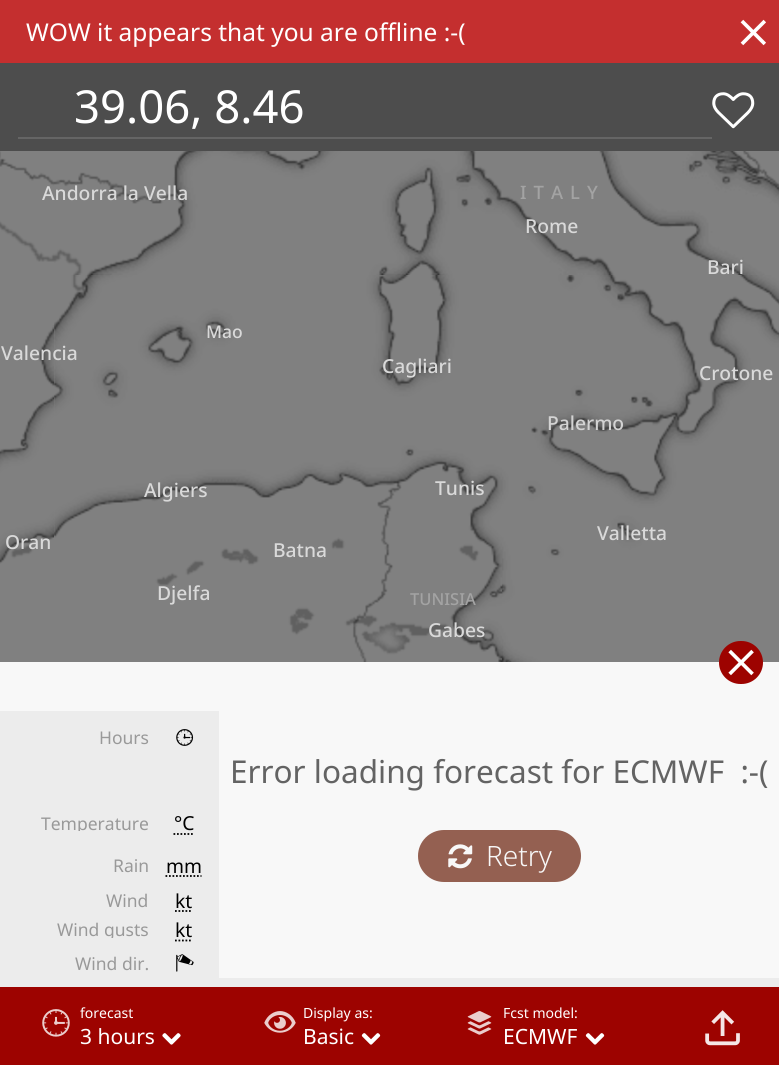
#include <cairo/cairo.h>
#include <math.h>
#include <stddef.h>


static void draw_spaced(cairo_t *cr, double x, double y, const char *s, double letter, double word) {
  cairo_move_to(cr, x, y);
  while (*s) {
    char ch[5] = {0};
    int n = 0;
    do ch[n++] = *s++; while ((*s & 0xC0) == 0x80);
    cairo_show_text(cr, ch);
    cairo_rel_move_to(cr, letter + word * (*ch == ' '), 0);
  }
}

static void rounded_rect(cairo_t *cr, double x, double y, double w, double h, double r) {
  cairo_new_sub_path(cr);
  cairo_arc(cr, x + w - r, y + h - r, r, 0, M_PI / 2);
  cairo_arc(cr, x + r, y + h - r, r, M_PI / 2, M_PI);
  cairo_arc(cr, x + r, y + r, r, M_PI, 1.5 * M_PI);
  cairo_arc(cr, x + w - r, y + r, r, 1.5 * M_PI, 2 * M_PI);
  cairo_close_path(cr);
}

static void draw_image(cairo_t *cr, const char *path, double x, double y, double w, double h) {
  cairo_surface_t *image = cairo_image_surface_create_from_png(path);
  cairo_save(cr);
  cairo_set_source_surface(cr, image, x, y);
  cairo_rectangle(cr, x, y, w, h);
  cairo_fill(cr);
  cairo_restore(cr);
  cairo_surface_destroy(image);
}

static void draw(cairo_t *cr) {
  cairo_set_source_rgb(cr, 128 / 255.0, 128 / 255.0, 128 / 255.0);
  cairo_paint(cr);
  cairo_set_source_rgb(cr, 196 / 255.0, 47 / 255.0, 47 / 255.0);
  cairo_rectangle(cr, 0, 0, 779, 63);
  cairo_fill(cr);
  draw_image(cr, "images/1.png", 740, 19, 26, 27);
  cairo_set_source_rgb(cr, 248 / 255.0, 248 / 255.0, 248 / 255.0);
  cairo_rectangle(cr, 219, 662, 560, 316);
  cairo_fill(cr);
  draw_image(cr, "images/17.png", 54, 274, 449, 388);
  draw_image(cr, "images/18.png", 502, 275, 277, 387);
  cairo_set_source_rgb(cr, 157 / 255.0, 3 / 255.0, 0);
  rounded_rect(cr, 719, 641, 44, 43, 21.5);
  cairo_fill(cr);
  draw_image(cr, "images/2.png", 728, 649, 26, 27);
  cairo_set_source_rgb(cr, 236 / 255.0, 236 / 255.0, 236 / 255.0);
  cairo_rectangle(cr, 0, 711, 219, 267);
  cairo_fill(cr);
  cairo_set_source_rgb(cr, 248 / 255.0, 248 / 255.0, 248 / 255.0);
  cairo_rectangle(cr, 0, 662, 219, 49);
  cairo_fill(cr);
  draw_image(cr, "images/3.png", 176, 729, 18, 17);
  cairo_new_path(cr);
  cairo_move_to(cr, 173.5, 834);
  cairo_line_to(cr, 194, 834);
  cairo_set_source_rgb(cr, 0, 0, 0);
  cairo_set_line_width(cr, 1.8);
  cairo_set_dash(cr, (double[]){1.75, 1.75}, 2, 0);
  cairo_stroke(cr);
  cairo_new_path(cr);
  cairo_move_to(cr, 165.5, 876);
  cairo_line_to(cr, 201.5, 876);
  cairo_stroke(cr);
  cairo_new_path(cr);
  cairo_move_to(cr, 175, 911);
  cairo_line_to(cr, 192.5, 911);
  cairo_stroke(cr);
  cairo_new_path(cr);
  cairo_move_to(cr, 175, 940.5);
  cairo_line_to(cr, 192.5, 940.5);
  cairo_stroke(cr);
  draw_image(cr, "images/4.png", 176, 954, 18, 18);
  cairo_set_source_rgb(cr, 148 / 255.0, 96 / 255.0, 81 / 255.0);
  rounded_rect(cr, 418, 830, 163, 52, 26);
  cairo_fill(cr);
  draw_image(cr, "images/5.png", 448, 844, 25, 25);
  cairo_set_source_rgb(cr, 157 / 255.0, 3 / 255.0, 0);
  cairo_rectangle(cr, 0, 987, 779, 78);
  cairo_fill(cr);
  cairo_set_source_rgb(cr, 236 / 255.0, 236 / 255.0, 236 / 255.0);
  cairo_rectangle(cr, 0, 978, 779, 9);
  cairo_fill(cr);
  draw_image(cr, "images/6.png", 42, 1009, 28, 28);
  draw_image(cr, "images/7.png", 162, 1033, 19, 12);
  draw_image(cr, "images/8.png", 264, 1011, 32, 22);
  draw_image(cr, "images/9.png", 361, 1033, 20, 12);
  draw_image(cr, "images/10.png", 467, 1011, 25, 24);
  draw_image(cr, "images/9.png", 585, 1033, 20, 12);
  draw_image(cr, "images/11.png", 705, 1010, 35, 36);
  cairo_set_source_rgb(cr, 77 / 255.0, 77 / 255.0, 77 / 255.0);
  cairo_rectangle(cr, 0, 63, 779, 88);
  cairo_fill(cr);
  cairo_set_source_rgb(cr, 101 / 255.0, 101 / 255.0, 101 / 255.0);
  cairo_rectangle(cr, 18, 137, 694, 2);
  cairo_fill(cr);
  draw_image(cr, "images/12.png", 712, 92, 43, 37);
  draw_image(cr, "images/13.png", 0, 151, 54, 111);
  draw_image(cr, "images/14.png", 54, 151, 448, 124);
  draw_image(cr, "images/15.png", 502, 151, 277, 124);
  draw_image(cr, "images/16.png", 0, 325, 54, 239);
  cairo_select_font_face(cr, "Noto Sans", CAIRO_FONT_SLANT_NORMAL, CAIRO_FONT_WEIGHT_NORMAL);
  cairo_set_font_size(cr, 24.5);
  cairo_set_source_rgb(cr, 1, 1, 1);
  cairo_move_to(cr, 26, 41);
  cairo_show_text(cr, "WOW it appears that you are offline :-(");
  cairo_set_font_size(cr, 17.5);
  cairo_set_source_rgb(cr, 153 / 255.0, 153 / 255.0, 153 / 255.0);
  cairo_move_to(cr, 99, 744);
  cairo_show_text(cr, "Hours");
  cairo_save(cr);
  cairo_rectangle(cr, 0, 814, 149, 17);
  cairo_clip(cr);
  cairo_move_to(cr, 41, 830);
  cairo_show_text(cr, "Temperature");
  cairo_restore(cr);
  cairo_set_font_size(cr, 19.25);
  cairo_set_source_rgb(cr, 0, 0, 0);
  cairo_move_to(cr, 174, 830);
  cairo_show_text(cr, "°C");
  cairo_set_font_size(cr, 17.5);
  cairo_set_source_rgb(cr, 153 / 255.0, 153 / 255.0, 153 / 255.0);
  cairo_move_to(cr, 113, 872);
  cairo_show_text(cr, "Rain");
  cairo_set_font_size(cr, 19.25);
  cairo_set_source_rgb(cr, 0, 0, 0);
  cairo_move_to(cr, 166, 873);
  cairo_show_text(cr, "mm");
  cairo_set_font_size(cr, 17.5);
  cairo_set_source_rgb(cr, 153 / 255.0, 153 / 255.0, 153 / 255.0);
  cairo_move_to(cr, 106, 907);
  cairo_show_text(cr, "Wind");
  cairo_set_font_size(cr, 19.25);
  cairo_set_source_rgb(cr, 0, 0, 0);
  cairo_move_to(cr, 175, 908);
  cairo_show_text(cr, "kt");
  cairo_save(cr);
  cairo_rectangle(cr, 0, 921, 149, 17);
  cairo_clip(cr);
  cairo_set_font_size(cr, 17.5);
  cairo_set_source_rgb(cr, 153 / 255.0, 153 / 255.0, 153 / 255.0);
  cairo_move_to(cr, 57, 936);
  cairo_show_text(cr, "Wind gusts");
  cairo_restore(cr);
  cairo_move_to(cr, 175, 937);
  cairo_show_text(cr, "kt");
  cairo_set_font_size(cr, 17.5);
  cairo_set_source_rgb(cr, 153 / 255.0, 153 / 255.0, 153 / 255.0);
  cairo_move_to(cr, 75, 970);
  cairo_show_text(cr, "Wind dir.");
  cairo_set_font_size(cr, 31.5);
  cairo_set_source_rgb(cr, 99 / 255.0, 99 / 255.0, 99 / 255.0);
  cairo_move_to(cr, 230, 783);
  cairo_show_text(cr, "Error loading forecast for ECMWF  :-(");
  cairo_select_font_face(cr, "Noto Sans Light", CAIRO_FONT_SLANT_NORMAL, CAIRO_FONT_WEIGHT_NORMAL);
  cairo_set_font_size(cr, 28);
  cairo_set_source_rgb(cr, 248 / 255.0, 248 / 255.0, 248 / 255.0);
  cairo_move_to(cr, 486, 866);
  cairo_show_text(cr, "Retry");
  cairo_select_font_face(cr, "Noto Sans", CAIRO_FONT_SLANT_NORMAL, CAIRO_FONT_WEIGHT_NORMAL);
  cairo_set_font_size(cr, 14);
  cairo_set_source_rgb(cr, 1, 1, 1);
  cairo_move_to(cr, 80, 1018);
  cairo_show_text(cr, "forecast");
  cairo_set_font_size(cr, 21);
  cairo_move_to(cr, 80, 1044);
  cairo_show_text(cr, "3 hours");
  cairo_set_font_size(cr, 14);
  cairo_move_to(cr, 303, 1018);
  cairo_show_text(cr, "Display as:");
  cairo_set_font_size(cr, 21);
  cairo_move_to(cr, 303, 1044);
  cairo_show_text(cr, "Basic");
  cairo_set_font_size(cr, 14);
  cairo_move_to(cr, 503, 1018);
  cairo_show_text(cr, "Fcst model:");
  cairo_set_font_size(cr, 21);
  cairo_move_to(cr, 503, 1044);
  cairo_show_text(cr, "ECMWF");
  cairo_set_font_size(cr, 45.5);
  cairo_move_to(cr, 74, 123);
  cairo_show_text(cr, "39.06, 8.46");
  cairo_select_font_face(cr, "Noto Sans Medium", CAIRO_FONT_SLANT_NORMAL, CAIRO_FONT_WEIGHT_NORMAL);
  cairo_set_font_size(cr, 19.25);
  cairo_set_source_rgb(cr, 217 / 255.0, 217 / 255.0, 217 / 255.0);
  cairo_move_to(cr, 42, 200);
  cairo_show_text(cr, "Andorra la Vella");
  cairo_set_font_size(cr, 18.5);
  cairo_set_source_rgb(cr, 163 / 255.0, 163 / 255.0, 163 / 255.0);
  draw_spaced(cr, 520, 199, "ITALY", 7, 0);
  cairo_set_font_size(cr, 19.25);
  cairo_set_source_rgb(cr, 217 / 255.0, 217 / 255.0, 217 / 255.0);
  cairo_move_to(cr, 525, 233);
  cairo_show_text(cr, "Rome");
  cairo_move_to(cr, 707, 274);
  cairo_show_text(cr, "Bari");
  cairo_move_to(cr, 1, 360);
  cairo_show_text(cr, "Valencia");
  cairo_move_to(cr, 5, 549);
  cairo_show_text(cr, "Oran");
  cairo_set_font_size(cr, 17.5);
  cairo_move_to(cr, 206, 338);
  cairo_show_text(cr, "Mao");
  cairo_set_font_size(cr, 19.25);
  cairo_move_to(cr, 382, 373);
  cairo_show_text(cr, "Cagliari");
  cairo_move_to(cr, 144, 497);
  cairo_show_text(cr, "Algiers");
  cairo_move_to(cr, 435, 495);
  cairo_show_text(cr, "Tunis");
  cairo_move_to(cr, 273, 557);
  cairo_show_text(cr, "Batna");
  cairo_move_to(cr, 157, 600);
  cairo_show_text(cr, "Djelfa");
  cairo_set_font_size(cr, 16.5);
  cairo_set_source_rgb(cr, 163 / 255.0, 163 / 255.0, 163 / 255.0);
  cairo_move_to(cr, 410, 605);
  cairo_show_text(cr, "TUNISIA");
  cairo_set_font_size(cr, 19.25);
  cairo_set_source_rgb(cr, 217 / 255.0, 217 / 255.0, 217 / 255.0);
  cairo_move_to(cr, 428, 637);
  cairo_show_text(cr, "Gabes");
  cairo_move_to(cr, 699, 380);
  cairo_show_text(cr, "Crotone");
  cairo_set_source_rgb(cr, 211 / 255.0, 211 / 255.0, 211 / 255.0);
  cairo_move_to(cr, 547, 430);
  cairo_show_text(cr, "Palermo");
  cairo_set_source_rgb(cr, 217 / 255.0, 217 / 255.0, 217 / 255.0);
  cairo_move_to(cr, 597, 540);
  cairo_show_text(cr, "Valletta");
}

int main(void) {
  cairo_surface_t *surface = cairo_image_surface_create(CAIRO_FORMAT_RGB24, 779, 1065);
  cairo_t *cr = cairo_create(surface);
  cairo_font_options_t *options = cairo_font_options_create();
  cairo_font_options_set_hint_metrics(options, CAIRO_HINT_METRICS_OFF);
  cairo_font_options_set_hint_style(options, CAIRO_HINT_STYLE_NONE);
  cairo_set_font_options(cr, options);
  cairo_set_miter_limit(cr, 4);
  draw(cr);
  cairo_surface_write_to_png(surface, "out.png");
  cairo_font_options_destroy(options);
  cairo_destroy(cr);
  cairo_surface_destroy(surface);
  return 0;
}
